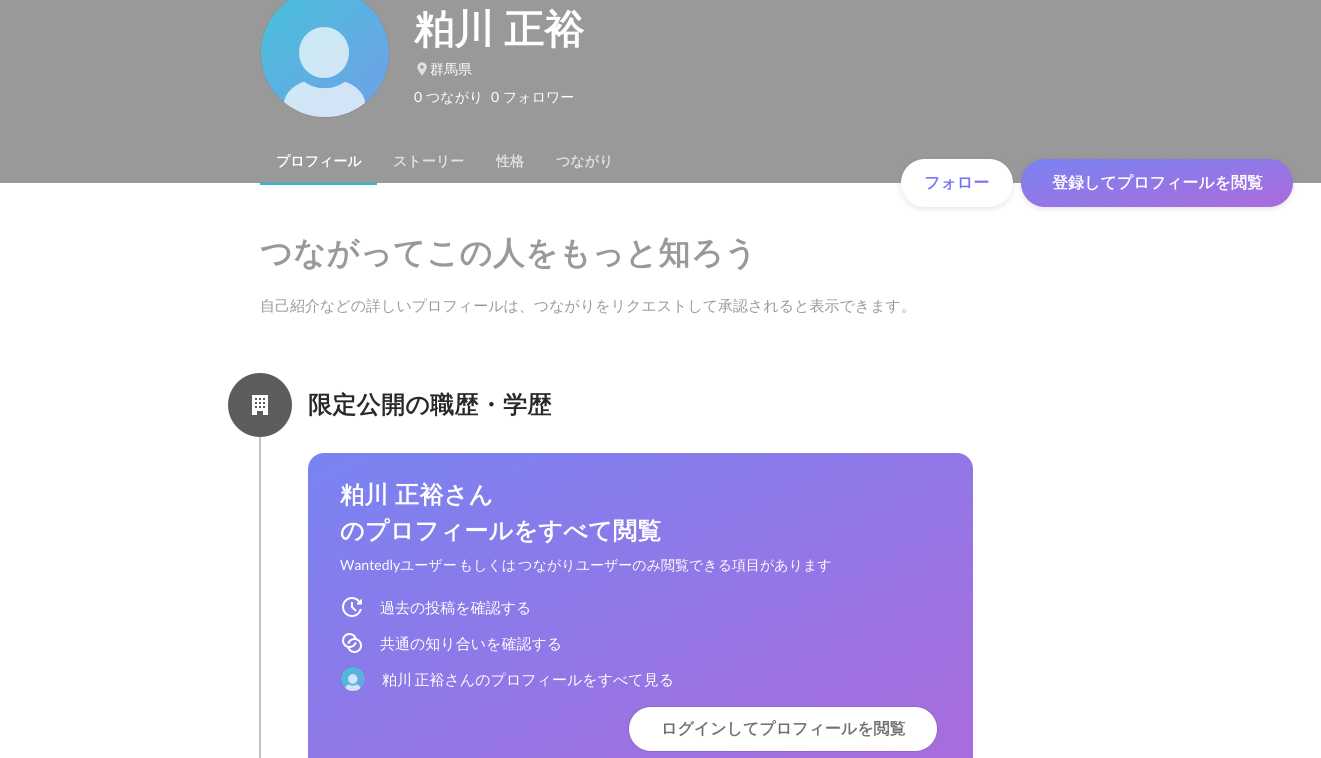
#include <cairo/cairo.h>
#include <math.h>
#include <stddef.h>


static void draw_spaced(cairo_t *cr, double x, double y, const char *s, double letter, double word) {
  cairo_move_to(cr, x, y);
  while (*s) {
    char ch[5] = {0};
    int n = 0;
    do ch[n++] = *s++; while ((*s & 0xC0) == 0x80);
    cairo_show_text(cr, ch);
    cairo_rel_move_to(cr, letter + word * (*ch == ' '), 0);
  }
}

static void rounded_rect(cairo_t *cr, double x, double y, double w, double h, double r) {
  cairo_new_sub_path(cr);
  cairo_arc(cr, x + w - r, y + h - r, r, 0, M_PI / 2);
  cairo_arc(cr, x + r, y + h - r, r, M_PI / 2, M_PI);
  cairo_arc(cr, x + r, y + r, r, M_PI, 1.5 * M_PI);
  cairo_arc(cr, x + w - r, y + r, r, 1.5 * M_PI, 2 * M_PI);
  cairo_close_path(cr);
}

static void draw_shadow(cairo_t *cr, double x, double y, double w, double h, double r, double blur, double alpha) {
  cairo_push_group_with_content(cr, CAIRO_CONTENT_ALPHA);
  cairo_set_operator(cr, CAIRO_OPERATOR_SOURCE);
  for (int i = 15; i >= -15 && fmin(w, h) + blur * i / 3 > 0; i -= 2) {
    double e = blur * i / 6;
    cairo_set_source_rgba(cr, 0, 0, 0, alpha * erfc((i - 1) / 8.5) / 2);
    rounded_rect(cr, x - e, y - e, w + 2 * e, h + 2 * e, fmax(0, fmin(r + e + blur * .6, fmin(w, h) / 2 + e)));
    cairo_fill(cr);
  }
  cairo_pattern_t *soft = cairo_pop_group(cr);
  cairo_mask(cr, soft);
  cairo_pattern_destroy(soft);
}

static void draw_image(cairo_t *cr, const char *path, double x, double y, double w, double h) {
  cairo_surface_t *image = cairo_image_surface_create_from_png(path);
  cairo_save(cr);
  cairo_set_source_surface(cr, image, x, y);
  cairo_rectangle(cr, x, y, w, h);
  cairo_fill(cr);
  cairo_restore(cr);
  cairo_surface_destroy(image);
}

static void draw(cairo_t *cr) {
  cairo_pattern_t *gradient;
  cairo_set_source_rgb(cr, 1, 1, 1);
  cairo_paint(cr);
  cairo_set_source_rgb(cr, 153 / 255.0, 153 / 255.0, 153 / 255.0);
  cairo_rectangle(cr, 0, 0, 1321, 183);
  cairo_fill(cr);
  cairo_arc(cr, 325, 53, 64.5, 0, 2 * M_PI);
  cairo_set_source_rgb(cr, 144 / 255.0, 144 / 255.0, 144 / 255.0);
  cairo_set_line_width(cr, 1);
  cairo_stroke(cr);
  draw_image(cr, "images/1.png", 261, 0, 128, 117);
  draw_image(cr, "images/2.png", 417, 62, 10, 14);
  cairo_set_source_rgb(cr, 33 / 255.0, 189 / 255.0, 219 / 255.0);
  cairo_rectangle(cr, 260, 183, 117, 2);
  cairo_fill(cr);
  cairo_set_source_rgb(cr, 0, 0, 0);
  draw_shadow(cr, 901, 161, 112, 48, 24, 3, 0.1);
  cairo_set_source_rgb(cr, 1, 1, 1);
  rounded_rect(cr, 901, 159, 112, 48, 24);
  cairo_fill(cr);
  cairo_set_source_rgb(cr, 0, 0, 0);
  draw_shadow(cr, 1021, 161, 272, 48, 24, 3, 0.1);
  gradient = cairo_pattern_create_linear(1149, 136, 1165, 230);
  cairo_pattern_add_color_stop_rgba(gradient, 0, 121 / 255.0, 131 / 255.0, 242 / 255.0, 1);
  cairo_pattern_add_color_stop_rgba(gradient, 1, 171 / 255.0, 107 / 255.0, 219 / 255.0, 1);
  cairo_set_source(cr, gradient);
  cairo_pattern_destroy(gradient);
  rounded_rect(cr, 1021, 159, 272, 48, 24);
  cairo_fill(cr);
  cairo_set_source_rgb(cr, 194 / 255.0, 194 / 255.0, 194 / 255.0);
  cairo_rectangle(cr, 259, 436, 2, 322);
  cairo_fill(cr);
  cairo_set_source_rgb(cr, 92 / 255.0, 92 / 255.0, 92 / 255.0);
  cairo_arc(cr, 260, 405, 32, 0, 2 * M_PI);
  cairo_fill(cr);
  draw_image(cr, "images/3.png", 252, 395, 16, 20);
  gradient = cairo_pattern_create_linear(510, 353, 771, 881);
  cairo_pattern_add_color_stop_rgba(gradient, 0, 121 / 255.0, 131 / 255.0, 242 / 255.0, 1);
  cairo_pattern_add_color_stop_rgba(gradient, 1, 171 / 255.0, 107 / 255.0, 219 / 255.0, 1);
  cairo_set_source(cr, gradient);
  cairo_pattern_destroy(gradient);
  rounded_rect(cr, 308, 453, 665, 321, 16);
  cairo_fill(cr);
  draw_image(cr, "images/4.png", 342, 597, 20, 20);
  draw_image(cr, "images/5.png", 342, 633, 20, 20);
  cairo_arc(cr, 353, 679, 12.5, 0, 2 * M_PI);
  cairo_set_source_rgb(cr, 132 / 255.0, 114 / 255.0, 219 / 255.0);
  cairo_stroke(cr);
  draw_image(cr, "images/6.png", 341, 667, 24, 24);
  rounded_rect(cr, 628.5, 706.5, 309, 45, 22.5);
  cairo_set_source_rgba(cr, 0, 0, 0, 0.1);
  cairo_stroke(cr);
  cairo_set_source_rgb(cr, 1, 1, 1);
  rounded_rect(cr, 629, 707, 308, 44, 22);
  cairo_fill(cr);
  cairo_select_font_face(cr, "WenQuanYi Zen Hei", CAIRO_FONT_SLANT_NORMAL, CAIRO_FONT_WEIGHT_BOLD);
  cairo_set_font_size(cr, 40);
  draw_spaced(cr, 414, 43, "粕川 正裕", 0, -2);
  cairo_select_font_face(cr, "WenQuanYi Zen Hei Medium", CAIRO_FONT_SLANT_NORMAL, CAIRO_FONT_WEIGHT_NORMAL);
  cairo_set_font_size(cr, 14);
  cairo_move_to(cr, 430, 74);
  cairo_show_text(cr, "群馬県");
  cairo_select_font_face(cr, "Lato", CAIRO_FONT_SLANT_NORMAL, CAIRO_FONT_WEIGHT_NORMAL);
  cairo_move_to(cr, 414, 102);
  cairo_show_text(cr, "0");
  cairo_select_font_face(cr, "WenQuanYi Zen Hei Medium", CAIRO_FONT_SLANT_NORMAL, CAIRO_FONT_WEIGHT_NORMAL);
  cairo_move_to(cr, 426, 102);
  cairo_show_text(cr, "つながり");
  cairo_select_font_face(cr, "Lato", CAIRO_FONT_SLANT_NORMAL, CAIRO_FONT_WEIGHT_NORMAL);
  cairo_move_to(cr, 491, 102);
  cairo_show_text(cr, "0");
  cairo_select_font_face(cr, "WenQuanYi Zen Hei Medium", CAIRO_FONT_SLANT_NORMAL, CAIRO_FONT_WEIGHT_NORMAL);
  cairo_move_to(cr, 503, 102);
  cairo_show_text(cr, "フォロワー");
  cairo_select_font_face(cr, "WenQuanYi Zen Hei", CAIRO_FONT_SLANT_NORMAL, CAIRO_FONT_WEIGHT_BOLD);
  cairo_move_to(cr, 276, 166);
  cairo_show_text(cr, "プロフィール");
  cairo_set_source_rgb(cr, 224 / 255.0, 224 / 255.0, 224 / 255.0);
  cairo_move_to(cr, 393, 166);
  cairo_show_text(cr, "ストーリー");
  cairo_move_to(cr, 496, 166);
  cairo_show_text(cr, "性格");
  cairo_move_to(cr, 556, 166);
  cairo_show_text(cr, "つながり");
  cairo_set_font_size(cr, 16);
  cairo_set_source_rgb(cr, 115 / 255.0, 114 / 255.0, 242 / 255.0);
  cairo_move_to(cr, 924, 188);
  cairo_show_text(cr, "フォロー");
  cairo_set_source_rgb(cr, 1, 1, 1);
  cairo_move_to(cr, 1052, 188);
  cairo_show_text(cr, "登録してプロフィールを閲覧");
  cairo_set_font_size(cr, 32);
  cairo_set_source_rgb(cr, 153 / 255.0, 153 / 255.0, 153 / 255.0);
  draw_spaced(cr, 260, 264, "つながってこの人をもっと知ろう", 0.5, 0);
  cairo_select_font_face(cr, "WenQuanYi Zen Hei Medium", CAIRO_FONT_SLANT_NORMAL, CAIRO_FONT_WEIGHT_NORMAL);
  cairo_set_font_size(cr, 15);
  cairo_move_to(cr, 260, 311);
  cairo_show_text(cr, "自己紹介などの詳しいプロフィールは、つながりをリクエストして承認されると表示できます。");
  cairo_select_font_face(cr, "WenQuanYi Zen Hei", CAIRO_FONT_SLANT_NORMAL, CAIRO_FONT_WEIGHT_BOLD);
  cairo_set_font_size(cr, 24);
  cairo_set_source_rgb(cr, 41 / 255.0, 41 / 255.0, 41 / 255.0);
  draw_spaced(cr, 308, 413, "限定公開の職歴・学歴", 0.3, 0);
  cairo_set_source_rgb(cr, 1, 1, 1);
  draw_spaced(cr, 340, 503, "粕川 正裕さん", 0.3, -1);
  draw_spaced(cr, 340, 539, "のプロフィールをすべて閲覧", 0.3, 0);
  cairo_select_font_face(cr, "Lato", CAIRO_FONT_SLANT_NORMAL, CAIRO_FONT_WEIGHT_NORMAL);
  cairo_set_font_size(cr, 14);
  cairo_move_to(cr, 340, 570);
  cairo_show_text(cr, "Wantedly");
  cairo_select_font_face(cr, "WenQuanYi Zen Hei Medium", CAIRO_FONT_SLANT_NORMAL, CAIRO_FONT_WEIGHT_NORMAL);
  draw_spaced(cr, 400, 570, "ユーザー もしくは つながりユーザーのみ閲覧できる項目があります", 0, -2);
  cairo_set_font_size(cr, 15);
  cairo_move_to(cr, 380, 613);
  cairo_show_text(cr, "過去の投稿を確認する");
  cairo_move_to(cr, 380, 649);
  cairo_show_text(cr, "共通の知り合いを確認する");
  draw_spaced(cr, 382, 685, "粕川 正裕さんのプロフィールをすべて見る", 0, -2);
  cairo_select_font_face(cr, "WenQuanYi Zen Hei", CAIRO_FONT_SLANT_NORMAL, CAIRO_FONT_WEIGHT_BOLD);
  cairo_set_font_size(cr, 16);
  cairo_set_source_rgb(cr, 112 / 255.0, 112 / 255.0, 112 / 255.0);
  cairo_move_to(cr, 661, 734);
  cairo_show_text(cr, "ログインしてプロフィールを閲覧");
}

int main(void) {
  cairo_surface_t *surface = cairo_image_surface_create(CAIRO_FORMAT_RGB24, 1321, 758);
  cairo_t *cr = cairo_create(surface);
  cairo_font_options_t *options = cairo_font_options_create();
  cairo_font_options_set_hint_metrics(options, CAIRO_HINT_METRICS_OFF);
  cairo_font_options_set_hint_style(options, CAIRO_HINT_STYLE_NONE);
  cairo_set_font_options(cr, options);
  cairo_set_miter_limit(cr, 4);
  draw(cr);
  cairo_surface_write_to_png(surface, "out.png");
  cairo_font_options_destroy(options);
  cairo_destroy(cr);
  cairo_surface_destroy(surface);
  return 0;
}
